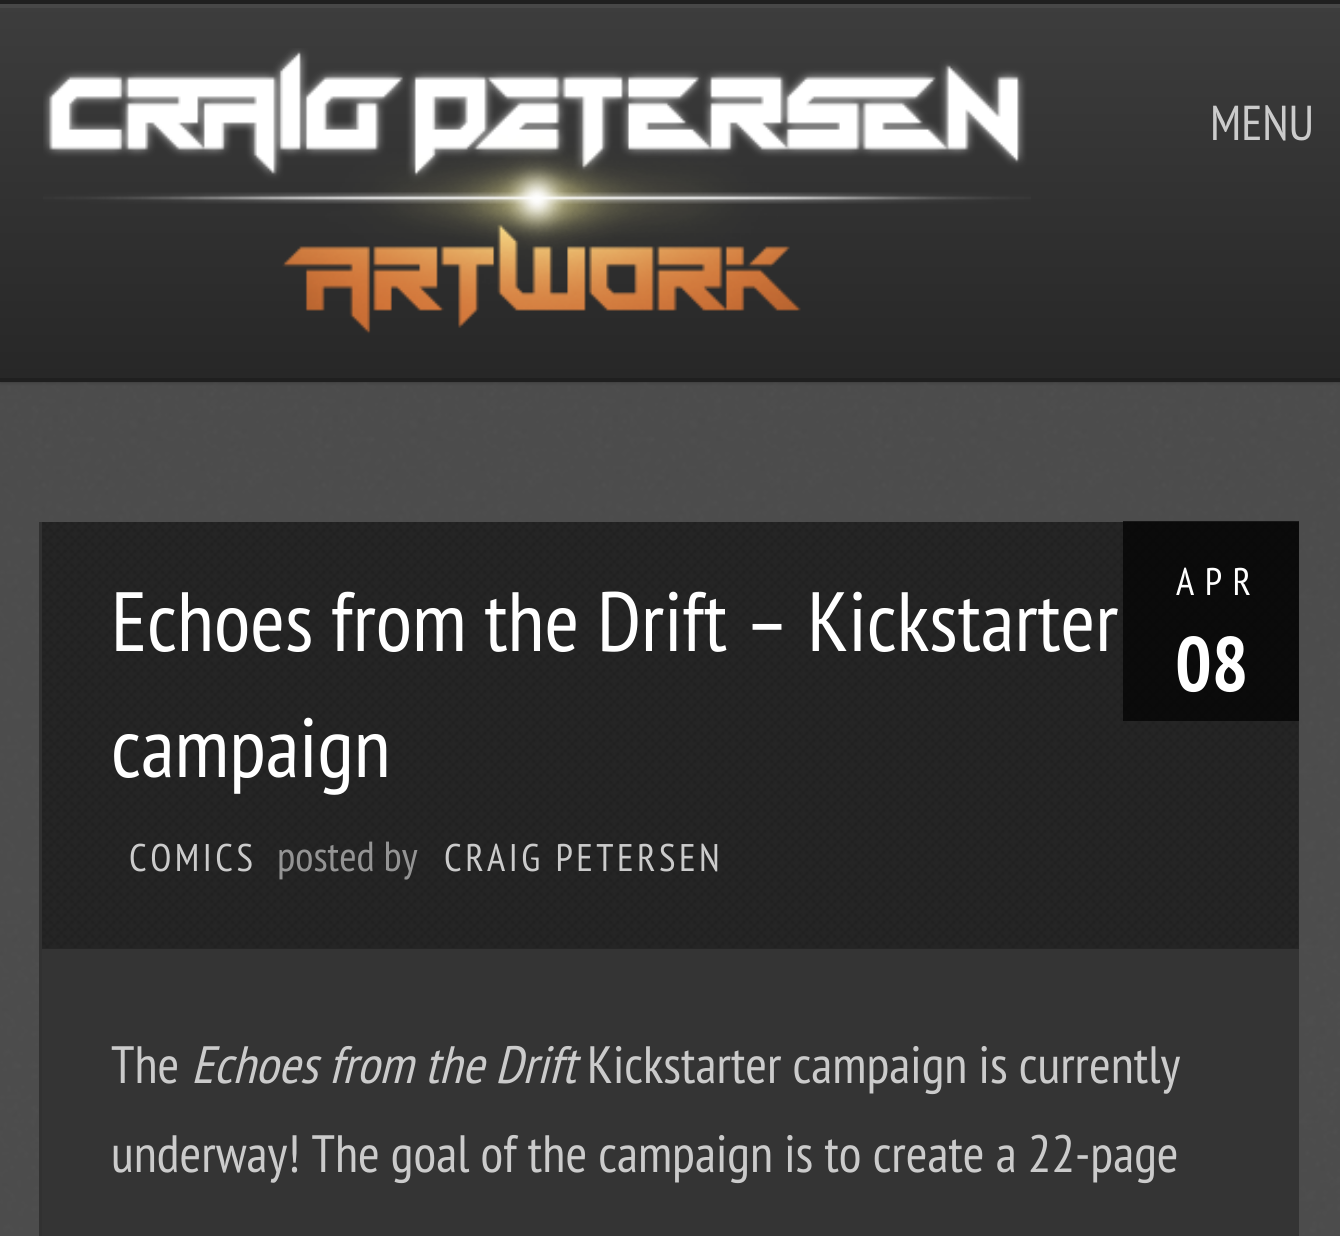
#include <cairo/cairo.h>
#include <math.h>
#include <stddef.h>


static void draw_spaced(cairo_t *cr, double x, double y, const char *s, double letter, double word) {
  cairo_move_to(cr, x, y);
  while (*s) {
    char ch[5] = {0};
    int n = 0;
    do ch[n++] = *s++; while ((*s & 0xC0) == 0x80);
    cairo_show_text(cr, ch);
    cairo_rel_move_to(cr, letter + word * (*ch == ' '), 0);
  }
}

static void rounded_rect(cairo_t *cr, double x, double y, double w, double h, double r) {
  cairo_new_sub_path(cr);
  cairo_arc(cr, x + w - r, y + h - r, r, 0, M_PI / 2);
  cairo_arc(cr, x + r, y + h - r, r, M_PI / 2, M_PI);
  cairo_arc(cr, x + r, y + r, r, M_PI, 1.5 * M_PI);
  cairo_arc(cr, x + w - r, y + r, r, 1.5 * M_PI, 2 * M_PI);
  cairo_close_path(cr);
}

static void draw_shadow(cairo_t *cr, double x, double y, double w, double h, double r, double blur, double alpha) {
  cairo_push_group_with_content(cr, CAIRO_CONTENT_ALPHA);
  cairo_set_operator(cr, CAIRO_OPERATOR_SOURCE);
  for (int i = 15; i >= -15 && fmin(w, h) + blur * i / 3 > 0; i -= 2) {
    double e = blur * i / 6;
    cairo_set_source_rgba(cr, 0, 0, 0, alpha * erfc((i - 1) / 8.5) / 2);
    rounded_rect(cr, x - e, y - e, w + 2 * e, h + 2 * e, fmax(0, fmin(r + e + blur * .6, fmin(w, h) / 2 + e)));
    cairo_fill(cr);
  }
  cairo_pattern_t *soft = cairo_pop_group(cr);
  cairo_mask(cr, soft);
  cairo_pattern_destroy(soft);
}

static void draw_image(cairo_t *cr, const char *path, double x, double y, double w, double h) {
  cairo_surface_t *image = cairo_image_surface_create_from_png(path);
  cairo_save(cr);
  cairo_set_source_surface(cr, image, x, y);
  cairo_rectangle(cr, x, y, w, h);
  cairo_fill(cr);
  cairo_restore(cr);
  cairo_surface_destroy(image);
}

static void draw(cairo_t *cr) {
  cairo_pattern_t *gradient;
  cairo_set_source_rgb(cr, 106 / 255.0, 106 / 255.0, 106 / 255.0);
  cairo_paint(cr);
  draw_image(cr, "images/1.png", 0, 382, 1340, 854);
  cairo_set_source_rgb(cr, 0, 0, 0);
  draw_shadow(cr, 0, 0, 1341, 382, 0, 2, 0.3);
  gradient = cairo_pattern_create_linear(670, 3.5, 670, 378);
  cairo_pattern_add_color_stop_rgba(gradient, 0, 61 / 255.0, 61 / 255.0, 61 / 255.0, 1);
  cairo_pattern_add_color_stop_rgba(gradient, 1, 39 / 255.0, 39 / 255.0, 39 / 255.0, 1);
  cairo_set_source(cr, gradient);
  cairo_pattern_destroy(gradient);
  cairo_rectangle(cr, 0, 8, 1340, 370);
  cairo_fill(cr);
  cairo_set_source_rgb(cr, 71 / 255.0, 71 / 255.0, 71 / 255.0);
  cairo_rectangle(cr, 0, 4, 1340, 4);
  cairo_fill(cr);
  cairo_set_source_rgb(cr, 31 / 255.0, 31 / 255.0, 31 / 255.0);
  cairo_rectangle(cr, 0, 0, 1340, 4);
  cairo_fill(cr);
  cairo_rectangle(cr, 0, 378, 1340, 4);
  cairo_fill(cr);
  draw_image(cr, "images/2.png", 43, 48, 988, 286);
  cairo_set_source_rgb(cr, 49 / 255.0, 49 / 255.0, 49 / 255.0);
  cairo_rectangle(cr, 39, 522, 3, 714);
  cairo_fill(cr);
  cairo_set_source_rgb(cr, 52 / 255.0, 52 / 255.0, 52 / 255.0);
  cairo_rectangle(cr, 42, 949, 1257, 287);
  cairo_fill(cr);
  cairo_set_source_rgb(cr, 38 / 255.0, 38 / 255.0, 38 / 255.0);
  cairo_rectangle(cr, 42, 522, 1257, 427);
  cairo_fill(cr);
  draw_image(cr, "images/3.png", 42, 522, 1256, 426);
  cairo_set_source_rgba(cr, 0, 0, 0, 0.7);
  cairo_rectangle(cr, 1123, 521, 176, 200);
  cairo_fill(cr);
  cairo_select_font_face(cr, "PT Sans Narrow", CAIRO_FONT_SLANT_NORMAL, CAIRO_FONT_WEIGHT_NORMAL);
  cairo_set_font_size(cr, 49);
  cairo_set_source_rgb(cr, 203 / 255.0, 203 / 255.0, 203 / 255.0);
  cairo_move_to(cr, 1210, 140);
  cairo_show_text(cr, "MENU");
  cairo_set_font_size(cr, 84);
  cairo_set_source_rgb(cr, 1, 1, 1);
  cairo_move_to(cr, 111, 651);
  cairo_show_text(cr, "Echoes from the Drift – Kickstarter");
  cairo_move_to(cr, 111, 777);
  cairo_show_text(cr, "campaign");
  cairo_set_font_size(cr, 38.5);
  cairo_set_source_rgb(cr, 203 / 255.0, 203 / 255.0, 203 / 255.0);
  draw_spaced(cr, 129, 871, "COMICS", 3.5, 0);
  cairo_set_font_size(cr, 42);
  cairo_set_source_rgb(cr, 148 / 255.0, 148 / 255.0, 148 / 255.0);
  cairo_move_to(cr, 277, 871);
  cairo_show_text(cr, "posted by");
  cairo_set_font_size(cr, 38.5);
  cairo_set_source_rgb(cr, 203 / 255.0, 203 / 255.0, 203 / 255.0);
  draw_spaced(cr, 444, 871, "CRAIG PETERSEN", 3.5, 0);
  cairo_set_source_rgb(cr, 1, 1, 1);
  draw_spaced(cr, 1176, 595, "APR", 10.5, 0);
  cairo_select_font_face(cr, "PT Sans Narrow", CAIRO_FONT_SLANT_NORMAL, CAIRO_FONT_WEIGHT_BOLD);
  cairo_set_font_size(cr, 77);
  cairo_move_to(cr, 1175, 691);
  cairo_show_text(cr, "08");
  cairo_select_font_face(cr, "PT Sans Narrow", CAIRO_FONT_SLANT_NORMAL, CAIRO_FONT_WEIGHT_NORMAL);
  cairo_set_font_size(cr, 52.5);
  cairo_set_source_rgb(cr, 203 / 255.0, 203 / 255.0, 203 / 255.0);
  cairo_move_to(cr, 111, 1083);
  cairo_show_text(cr, "The");
  cairo_select_font_face(cr, "PT Sans Narrow", CAIRO_FONT_SLANT_ITALIC, CAIRO_FONT_WEIGHT_NORMAL);
  cairo_move_to(cr, 191, 1083);
  cairo_show_text(cr, "Echoes from the Drift");
  cairo_select_font_face(cr, "PT Sans Narrow", CAIRO_FONT_SLANT_NORMAL, CAIRO_FONT_WEIGHT_NORMAL);
  cairo_move_to(cr, 587, 1083);
  cairo_show_text(cr, "Kickstarter campaign is currently");
  cairo_move_to(cr, 111, 1172);
  cairo_show_text(cr, "underway! The goal of the campaign is to create a 22-page");
}

int main(void) {
  cairo_surface_t *surface = cairo_image_surface_create(CAIRO_FORMAT_RGB24, 1340, 1236);
  cairo_t *cr = cairo_create(surface);
  cairo_font_options_t *options = cairo_font_options_create();
  cairo_font_options_set_hint_metrics(options, CAIRO_HINT_METRICS_OFF);
  cairo_font_options_set_hint_style(options, CAIRO_HINT_STYLE_NONE);
  cairo_set_font_options(cr, options);
  cairo_set_miter_limit(cr, 4);
  draw(cr);
  cairo_surface_write_to_png(surface, "out.png");
  cairo_font_options_destroy(options);
  cairo_destroy(cr);
  cairo_surface_destroy(surface);
  return 0;
}
